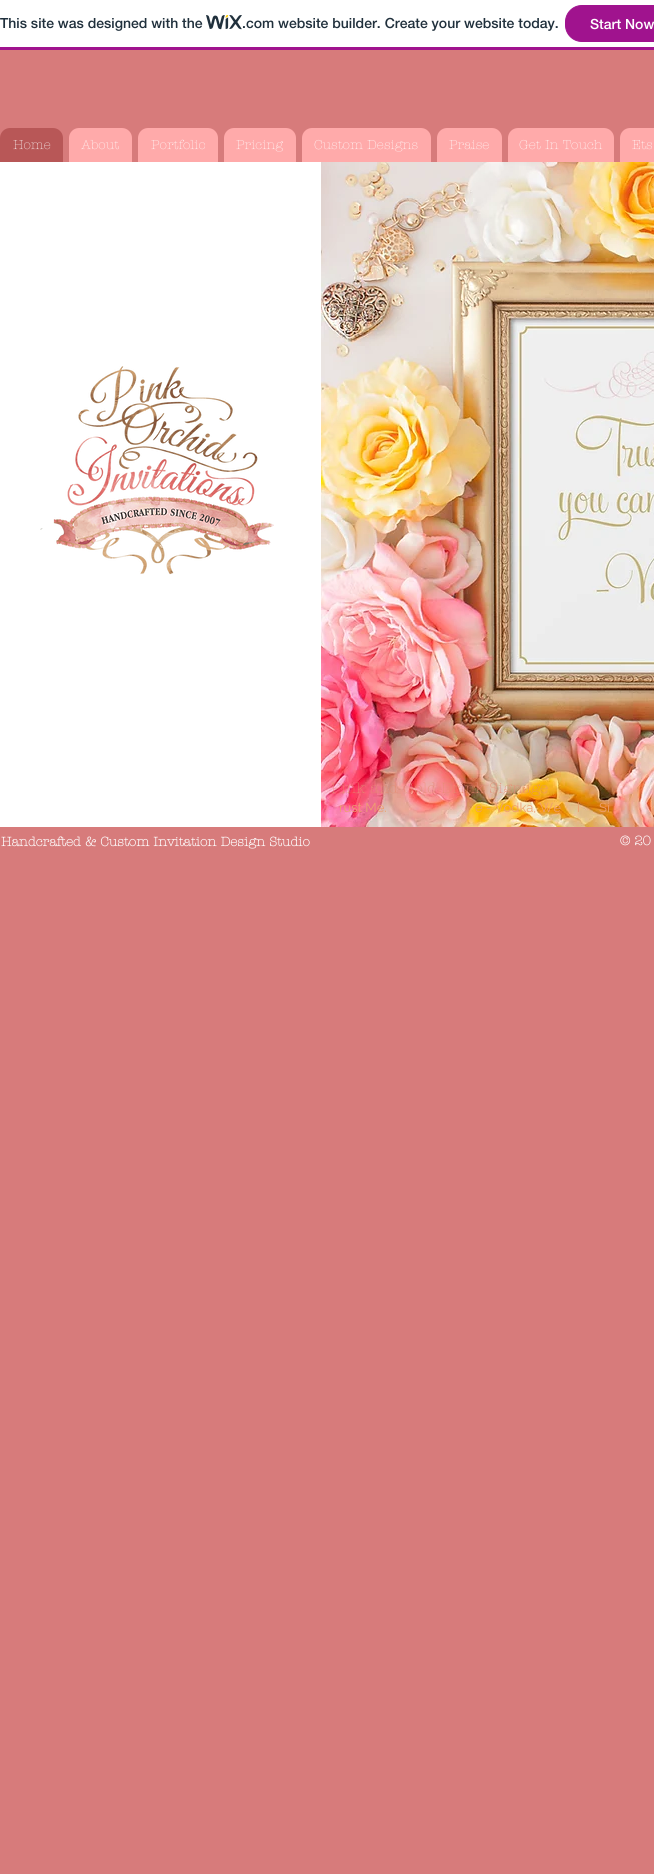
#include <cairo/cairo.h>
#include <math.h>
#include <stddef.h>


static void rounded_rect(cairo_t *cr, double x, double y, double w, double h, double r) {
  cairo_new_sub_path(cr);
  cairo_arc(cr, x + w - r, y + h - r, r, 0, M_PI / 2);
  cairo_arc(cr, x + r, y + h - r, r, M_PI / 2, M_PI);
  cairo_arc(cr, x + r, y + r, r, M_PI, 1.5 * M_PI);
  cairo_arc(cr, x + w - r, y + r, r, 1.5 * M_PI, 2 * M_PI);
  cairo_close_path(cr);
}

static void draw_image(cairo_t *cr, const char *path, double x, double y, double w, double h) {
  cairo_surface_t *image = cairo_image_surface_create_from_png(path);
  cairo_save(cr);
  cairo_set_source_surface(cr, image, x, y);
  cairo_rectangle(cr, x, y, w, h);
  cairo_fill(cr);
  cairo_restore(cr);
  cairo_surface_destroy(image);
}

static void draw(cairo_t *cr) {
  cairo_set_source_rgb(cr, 1, 1, 1);
  cairo_paint(cr);
  cairo_set_source_rgb(cr, 160 / 255.0, 19 / 255.0, 142 / 255.0);
  cairo_rectangle(cr, 0, 47, 654, 3);
  cairo_fill(cr);
  draw_image(cr, "images/1.png", 206, 15, 36, 15);
  rounded_rect(cr, 565.5, 5.5, 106, 36, 16.5);
  cairo_fill_preserve(cr);
  cairo_set_line_width(cr, 1);
  cairo_stroke(cr);
  cairo_set_source_rgb(cr, 215 / 255.0, 123 / 255.0, 123 / 255.0);
  cairo_rectangle(cr, 0, 50, 654, 1824);
  cairo_fill(cr);
  cairo_set_source_rgb(cr, 184 / 255.0, 87 / 255.0, 87 / 255.0);
  cairo_new_path(cr);
  cairo_move_to(cr, 10, 128);
  cairo_line_to(cr, 53, 128);
  cairo_curve_to(cr, 58.5, 128, 63, 132.5, 63, 138);
  cairo_line_to(cr, 63, 162);
  cairo_line_to(cr, 0, 162);
  cairo_line_to(cr, 0, 138);
  cairo_curve_to(cr, 0, 132.5, 4.5, 128, 10, 128);
  cairo_close_path(cr);
  cairo_fill(cr);
  cairo_set_source_rgb(cr, 1, 170 / 255.0, 170 / 255.0);
  cairo_new_path(cr);
  cairo_move_to(cr, 79, 128);
  cairo_line_to(cr, 122, 128);
  cairo_curve_to(cr, 127.5, 128, 132, 132.5, 132, 138);
  cairo_line_to(cr, 132, 162);
  cairo_line_to(cr, 69, 162);
  cairo_line_to(cr, 69, 138);
  cairo_curve_to(cr, 69, 132.5, 73.5, 128, 79, 128);
  cairo_close_path(cr);
  cairo_fill(cr);
  cairo_new_path(cr);
  cairo_move_to(cr, 148, 128);
  cairo_line_to(cr, 208, 128);
  cairo_curve_to(cr, 213.5, 128, 218, 132.5, 218, 138);
  cairo_line_to(cr, 218, 162);
  cairo_line_to(cr, 138, 162);
  cairo_line_to(cr, 138, 138);
  cairo_curve_to(cr, 138, 132.5, 142.5, 128, 148, 128);
  cairo_close_path(cr);
  cairo_fill(cr);
  cairo_new_path(cr);
  cairo_move_to(cr, 234, 128);
  cairo_line_to(cr, 286, 128);
  cairo_curve_to(cr, 291.5, 128, 296, 132.5, 296, 138);
  cairo_line_to(cr, 296, 162);
  cairo_line_to(cr, 224, 162);
  cairo_line_to(cr, 224, 138);
  cairo_curve_to(cr, 224, 132.5, 228.5, 128, 234, 128);
  cairo_close_path(cr);
  cairo_fill(cr);
  cairo_new_path(cr);
  cairo_move_to(cr, 312, 128);
  cairo_line_to(cr, 421, 128);
  cairo_curve_to(cr, 426.5, 128, 431, 132.5, 431, 138);
  cairo_line_to(cr, 431, 162);
  cairo_line_to(cr, 302, 162);
  cairo_line_to(cr, 302, 138);
  cairo_curve_to(cr, 302, 132.5, 306.5, 128, 312, 128);
  cairo_close_path(cr);
  cairo_fill(cr);
  cairo_new_path(cr);
  cairo_move_to(cr, 447, 128);
  cairo_line_to(cr, 492, 128);
  cairo_curve_to(cr, 497.5, 128, 502, 132.5, 502, 138);
  cairo_line_to(cr, 502, 162);
  cairo_line_to(cr, 437, 162);
  cairo_line_to(cr, 437, 138);
  cairo_curve_to(cr, 437, 132.5, 441.5, 128, 447, 128);
  cairo_close_path(cr);
  cairo_fill(cr);
  cairo_new_path(cr);
  cairo_move_to(cr, 518, 128);
  cairo_line_to(cr, 604, 128);
  cairo_curve_to(cr, 609.5, 128, 614, 132.5, 614, 138);
  cairo_line_to(cr, 614, 162);
  cairo_line_to(cr, 508, 162);
  cairo_line_to(cr, 508, 138);
  cairo_curve_to(cr, 508, 132.5, 512.5, 128, 518, 128);
  cairo_close_path(cr);
  cairo_fill(cr);
  cairo_new_path(cr);
  cairo_move_to(cr, 630, 128);
  cairo_line_to(cr, 654, 128);
  cairo_curve_to(cr, 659.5, 128, 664, 132.5, 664, 138);
  cairo_line_to(cr, 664, 162);
  cairo_line_to(cr, 620, 162);
  cairo_line_to(cr, 620, 138);
  cairo_curve_to(cr, 620, 132.5, 624.5, 128, 630, 128);
  cairo_close_path(cr);
  cairo_fill(cr);
  cairo_set_source_rgb(cr, 1, 1, 1);
  cairo_rectangle(cr, 0, 162, 321, 665);
  cairo_fill(cr);
  draw_image(cr, "images/2.png", 40, 366, 234, 209);
  draw_image(cr, "images/3.png", 321, 162, 333, 665);
  cairo_select_font_face(cr, "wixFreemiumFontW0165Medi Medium", CAIRO_FONT_SLANT_NORMAL, CAIRO_FONT_WEIGHT_NORMAL);
  cairo_set_font_size(cr, 14);
  cairo_set_source_rgb(cr, 32 / 255.0, 48 / 255.0, 60 / 255.0);
  cairo_move_to(cr, 0, 28);
  cairo_show_text(cr, "This site was designed with the");
  cairo_move_to(cr, 242, 28);
  cairo_show_text(cr, ".com website builder. Create your website today.");
  cairo_set_source_rgb(cr, 1, 1, 1);
  cairo_move_to(cr, 590, 29);
  cairo_show_text(cr, "Start Now");
  cairo_select_font_face(cr, "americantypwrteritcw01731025 Light", CAIRO_FONT_SLANT_NORMAL, CAIRO_FONT_WEIGHT_NORMAL);
  cairo_set_font_size(cr, 13);
  cairo_move_to(cr, 13, 149);
  cairo_show_text(cr, "Home");
  cairo_move_to(cr, 81, 149);
  cairo_show_text(cr, "About");
  cairo_move_to(cr, 151, 149);
  cairo_show_text(cr, "Portfolio");
  cairo_move_to(cr, 236, 149);
  cairo_show_text(cr, "Pricing");
  cairo_move_to(cr, 314, 149);
  cairo_show_text(cr, "Custom Designs");
  cairo_move_to(cr, 449, 149);
  cairo_show_text(cr, "Praise");
  cairo_move_to(cr, 519, 149);
  cairo_show_text(cr, "Get In Touch");
  cairo_move_to(cr, 632, 149);
  cairo_show_text(cr, "Ets");
  cairo_set_font_size(cr, 15);
  cairo_set_source_rgb(cr, 229 / 255.0, 140 / 255.0, 115 / 255.0);
  cairo_move_to(cr, 331, 793);
  cairo_show_text(cr, "Pink and Gold Drink Signage");
  cairo_select_font_face(cr, "Raleway", CAIRO_FONT_SLANT_NORMAL, CAIRO_FONT_WEIGHT_NORMAL);
  cairo_set_font_size(cr, 13);
  cairo_set_source_rgb(cr, 237 / 255.0, 159 / 255.0, 111 / 255.0);
  cairo_move_to(cr, 339, 812);
  cairo_show_text(cr, "rust Me.");
  cairo_move_to(cr, 475, 812);
  cairo_show_text(cr, "e - Vodka, We");
  cairo_move_to(cr, 577, 812);
  cairo_show_text(cr, "i");
  cairo_move_to(cr, 599, 812);
  cairo_show_text(cr, "Si");
  cairo_select_font_face(cr, "americantypwrteritcw01731025", CAIRO_FONT_SLANT_NORMAL, CAIRO_FONT_WEIGHT_BOLD);
  cairo_set_source_rgb(cr, 1, 1, 1);
  cairo_move_to(cr, 1, 846);
  cairo_show_text(cr, "Handcrafted & Custom Invitation Design Studio");
  cairo_move_to(cr, 620, 845);
  cairo_show_text(cr, "© 20");
}

int main(void) {
  cairo_surface_t *surface = cairo_image_surface_create(CAIRO_FORMAT_RGB24, 654, 1874);
  cairo_t *cr = cairo_create(surface);
  cairo_font_options_t *options = cairo_font_options_create();
  cairo_font_options_set_hint_metrics(options, CAIRO_HINT_METRICS_OFF);
  cairo_font_options_set_hint_style(options, CAIRO_HINT_STYLE_NONE);
  cairo_set_font_options(cr, options);
  cairo_set_miter_limit(cr, 4);
  draw(cr);
  cairo_surface_write_to_png(surface, "out.png");
  cairo_font_options_destroy(options);
  cairo_destroy(cr);
  cairo_surface_destroy(surface);
  return 0;
}
